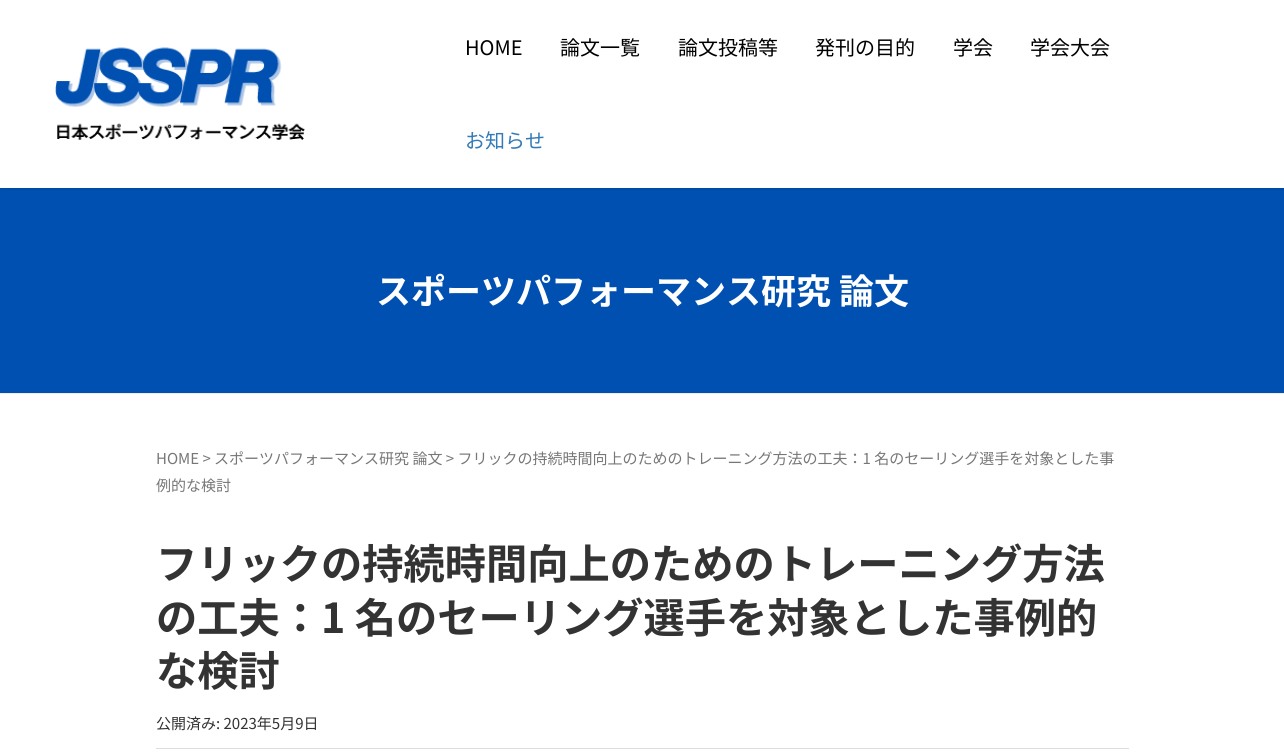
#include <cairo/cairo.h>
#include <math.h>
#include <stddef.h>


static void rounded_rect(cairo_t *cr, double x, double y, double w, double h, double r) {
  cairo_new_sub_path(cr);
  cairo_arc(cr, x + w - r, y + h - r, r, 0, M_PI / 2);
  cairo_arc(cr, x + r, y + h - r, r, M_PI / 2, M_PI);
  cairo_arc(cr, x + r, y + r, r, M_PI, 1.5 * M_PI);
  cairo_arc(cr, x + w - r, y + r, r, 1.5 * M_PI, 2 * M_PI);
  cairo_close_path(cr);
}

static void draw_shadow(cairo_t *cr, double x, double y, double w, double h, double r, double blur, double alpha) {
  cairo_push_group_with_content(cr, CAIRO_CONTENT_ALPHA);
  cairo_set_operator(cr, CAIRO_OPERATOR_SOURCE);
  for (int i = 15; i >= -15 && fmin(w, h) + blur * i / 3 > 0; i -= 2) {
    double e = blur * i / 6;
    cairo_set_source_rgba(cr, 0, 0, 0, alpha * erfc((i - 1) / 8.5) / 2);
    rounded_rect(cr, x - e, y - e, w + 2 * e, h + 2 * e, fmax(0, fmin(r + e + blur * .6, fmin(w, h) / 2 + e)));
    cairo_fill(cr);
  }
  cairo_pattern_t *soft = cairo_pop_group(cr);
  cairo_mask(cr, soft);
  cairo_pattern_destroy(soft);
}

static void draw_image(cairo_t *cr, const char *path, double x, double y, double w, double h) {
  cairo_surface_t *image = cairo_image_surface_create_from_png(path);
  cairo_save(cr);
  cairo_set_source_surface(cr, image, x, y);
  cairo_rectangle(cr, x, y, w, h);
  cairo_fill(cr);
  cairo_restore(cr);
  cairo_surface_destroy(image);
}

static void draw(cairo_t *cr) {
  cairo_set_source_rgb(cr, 1, 1, 1);
  cairo_paint(cr);
  cairo_set_source_rgb(cr, 0, 80 / 255.0, 177 / 255.0);
  cairo_rectangle(cr, 0, 188, 1284, 205);
  cairo_fill(cr);
  cairo_save(cr);
  cairo_set_fill_rule(cr, CAIRO_FILL_RULE_EVEN_ODD);
  cairo_new_path(cr);
  cairo_move_to(cr, 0, 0);
  cairo_line_to(cr, 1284, 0);
  cairo_line_to(cr, 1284, 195);
  cairo_line_to(cr, 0, 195);
  cairo_close_path(cr);
  cairo_move_to(cr, 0, 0);
  cairo_line_to(cr, 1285, 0);
  cairo_line_to(cr, 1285, 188);
  cairo_line_to(cr, 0, 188);
  cairo_close_path(cr);
  cairo_clip(cr);
  cairo_set_source_rgb(cr, 0, 0, 0);
  draw_shadow(cr, 0, 0, 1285, 188, 0, 2, 0.2);
  cairo_restore(cr);
  cairo_set_source_rgba(cr, 1, 1, 1, 0.8);
  cairo_rectangle(cr, 0, 187, 1284, 1);
  cairo_fill(cr);
  draw_image(cr, "images/1.png", 55, 47, 250, 93);
  cairo_set_source_rgb(cr, 238 / 255.0, 238 / 255.0, 238 / 255.0);
  cairo_rectangle(cr, 0, 393, 1284, 1);
  cairo_fill(cr);
  cairo_set_source_rgb(cr, 221 / 255.0, 221 / 255.0, 221 / 255.0);
  cairo_rectangle(cr, 156, 748, 973, 1);
  cairo_fill(cr);
  cairo_select_font_face(cr, "Noto Sans JP", CAIRO_FONT_SLANT_NORMAL, CAIRO_FONT_WEIGHT_NORMAL);
  cairo_set_font_size(cr, 20);
  cairo_set_source_rgb(cr, 0, 0, 0);
  cairo_move_to(cr, 465, 55);
  cairo_show_text(cr, "HOME");
  cairo_move_to(cr, 560, 55);
  cairo_show_text(cr, "論文一覧");
  cairo_move_to(cr, 678, 55);
  cairo_show_text(cr, "論文投稿等");
  cairo_move_to(cr, 815, 55);
  cairo_show_text(cr, "発刊の目的");
  cairo_move_to(cr, 953, 55);
  cairo_show_text(cr, "学会");
  cairo_move_to(cr, 1030, 55);
  cairo_show_text(cr, "学会大会");
  cairo_set_source_rgb(cr, 51 / 255.0, 122 / 255.0, 183 / 255.0);
  cairo_move_to(cr, 465, 148);
  cairo_show_text(cr, "お知らせ");
  cairo_select_font_face(cr, "Noto Sans JP", CAIRO_FONT_SLANT_NORMAL, CAIRO_FONT_WEIGHT_BOLD);
  cairo_set_font_size(cr, 35);
  cairo_set_source_rgb(cr, 1, 1, 1);
  cairo_move_to(cr, 376, 304);
  cairo_show_text(cr, "スポーツパフォーマンス研究 論文");
  cairo_select_font_face(cr, "Noto Sans JP", CAIRO_FONT_SLANT_NORMAL, CAIRO_FONT_WEIGHT_NORMAL);
  cairo_set_font_size(cr, 15);
  cairo_set_source_rgb(cr, 119 / 255.0, 119 / 255.0, 119 / 255.0);
  cairo_move_to(cr, 156, 464);
  cairo_show_text(cr, "HOME > スポーツパフォーマンス研究 論文 > フリックの持続時間向上のためのトレーニング方法の工夫：1 名のセーリング選手を対象とした事");
  cairo_move_to(cr, 156, 491);
  cairo_show_text(cr, "例的な検討");
  cairo_select_font_face(cr, "Noto Sans JP", CAIRO_FONT_SLANT_NORMAL, CAIRO_FONT_WEIGHT_BOLD);
  cairo_set_font_size(cr, 41.25);
  cairo_set_source_rgb(cr, 51 / 255.0, 51 / 255.0, 51 / 255.0);
  cairo_move_to(cr, 156, 579);
  cairo_show_text(cr, "フリックの持続時間向上のためのトレーニング方法");
  cairo_move_to(cr, 156, 633);
  cairo_show_text(cr, "の工夫：1 名のセーリング選手を対象とした事例的");
  cairo_move_to(cr, 156, 686);
  cairo_show_text(cr, "な検討");
  cairo_select_font_face(cr, "Noto Sans JP", CAIRO_FONT_SLANT_NORMAL, CAIRO_FONT_WEIGHT_NORMAL);
  cairo_set_font_size(cr, 15);
  cairo_move_to(cr, 156, 729);
  cairo_show_text(cr, "公開済み: 2023年5月9日");
}

int main(void) {
  cairo_surface_t *surface = cairo_image_surface_create(CAIRO_FORMAT_RGB24, 1284, 753);
  cairo_t *cr = cairo_create(surface);
  cairo_font_options_t *options = cairo_font_options_create();
  cairo_font_options_set_hint_metrics(options, CAIRO_HINT_METRICS_OFF);
  cairo_font_options_set_hint_style(options, CAIRO_HINT_STYLE_NONE);
  cairo_set_font_options(cr, options);
  cairo_set_miter_limit(cr, 4);
  draw(cr);
  cairo_surface_write_to_png(surface, "out.png");
  cairo_font_options_destroy(options);
  cairo_destroy(cr);
  cairo_surface_destroy(surface);
  return 0;
}
